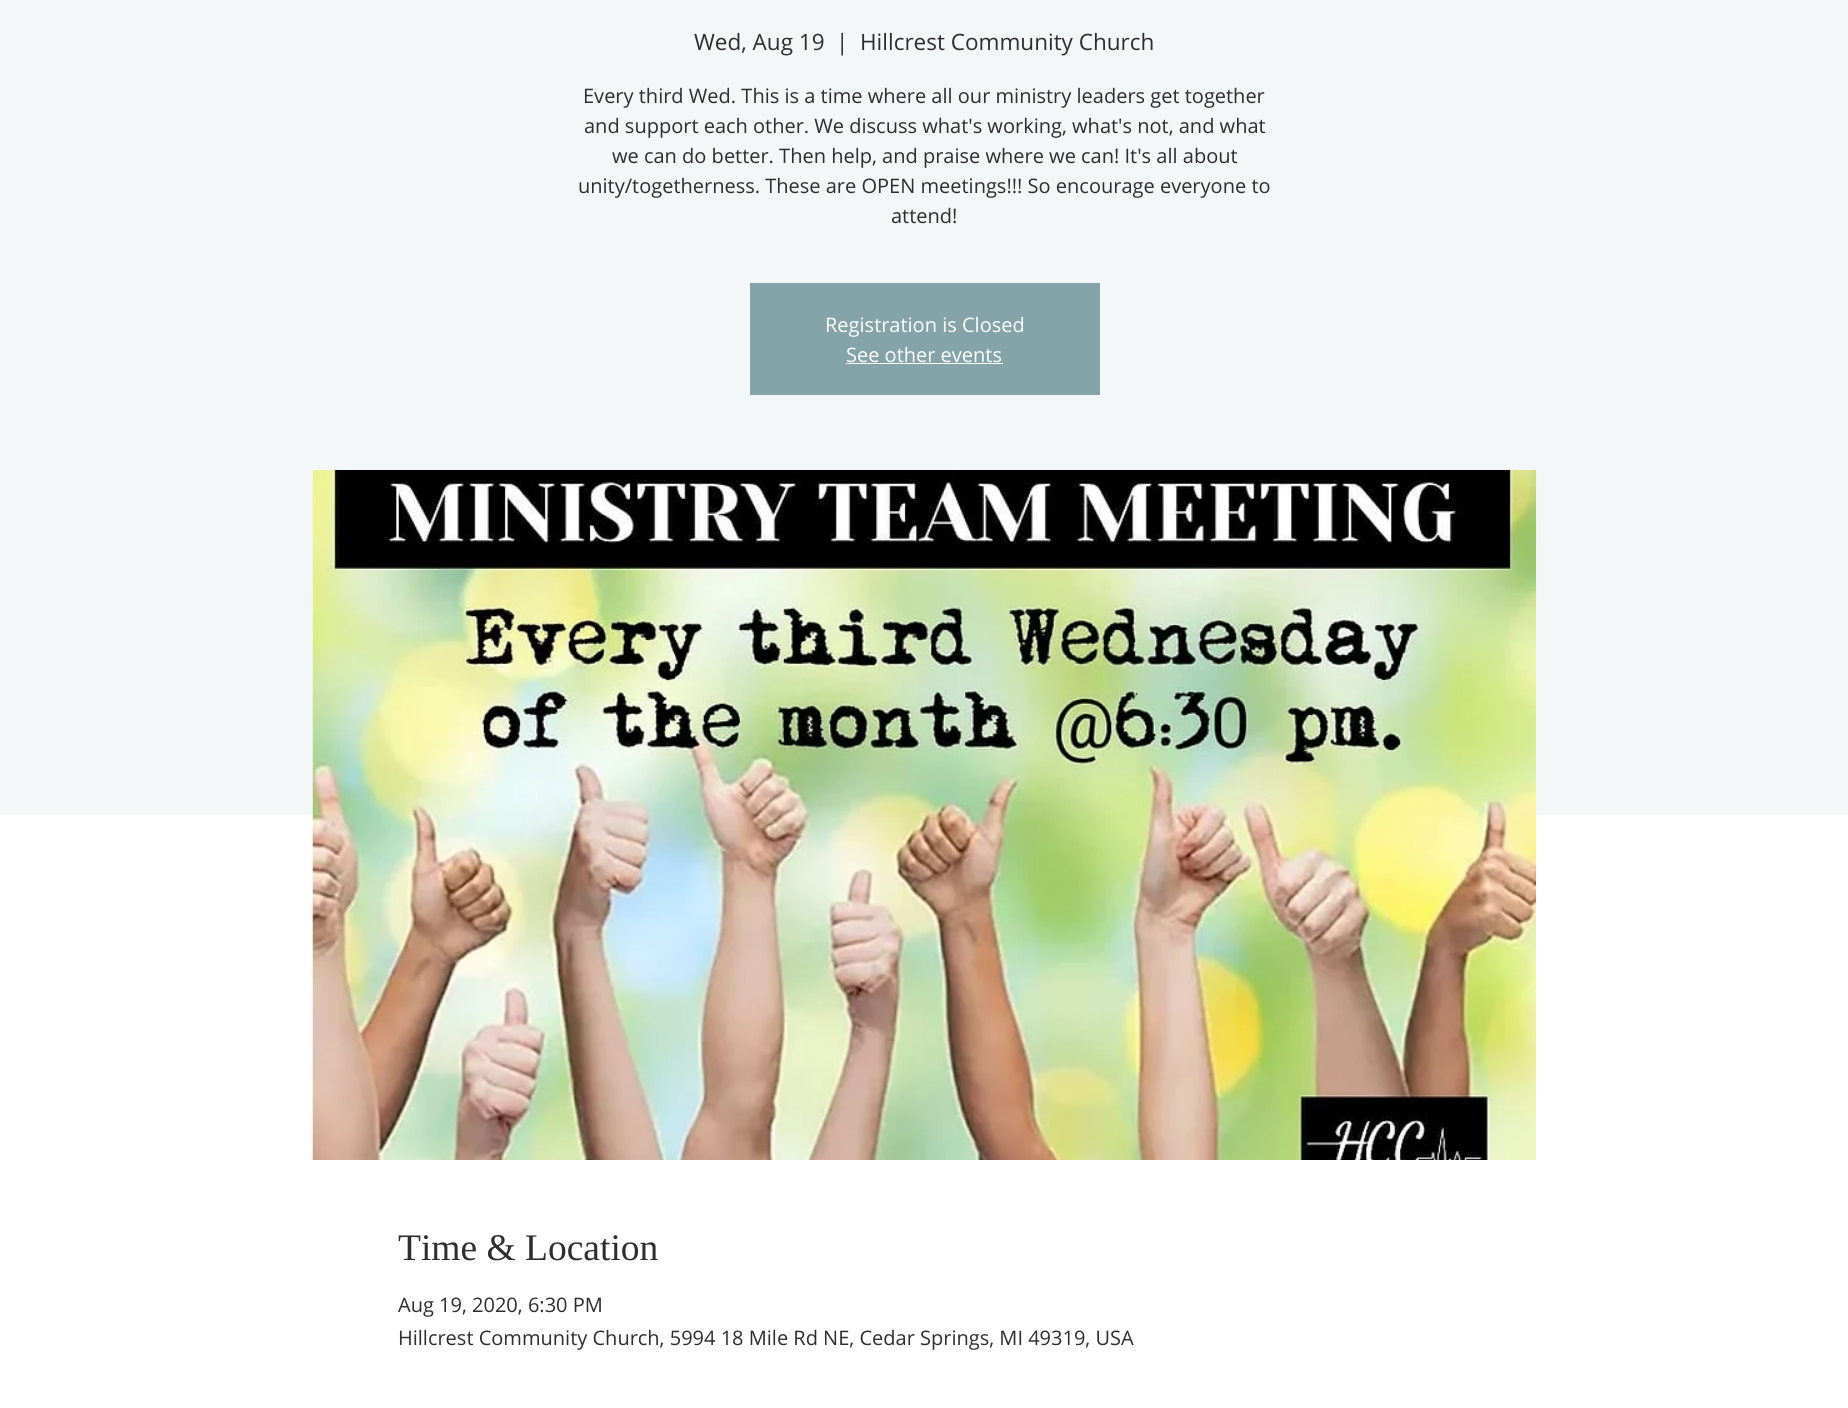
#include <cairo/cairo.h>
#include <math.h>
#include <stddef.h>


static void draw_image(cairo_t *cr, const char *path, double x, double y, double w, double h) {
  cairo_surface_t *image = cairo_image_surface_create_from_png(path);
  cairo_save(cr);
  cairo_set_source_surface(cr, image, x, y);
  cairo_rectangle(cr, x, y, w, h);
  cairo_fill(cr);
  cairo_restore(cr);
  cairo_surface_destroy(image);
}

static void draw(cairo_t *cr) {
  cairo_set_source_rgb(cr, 1, 1, 1);
  cairo_paint(cr);
  cairo_set_source_rgb(cr, 244 / 255.0, 247 / 255.0, 247 / 255.0);
  cairo_rectangle(cr, 0, 0, 1848, 815);
  cairo_fill(cr);
  cairo_set_source_rgb(cr, 132 / 255.0, 164 / 255.0, 169 / 255.0);
  cairo_rectangle(cr, 750, 283, 350, 112);
  cairo_fill(cr);
  cairo_set_source_rgb(cr, 1, 1, 1);
  cairo_rectangle(cr, 846, 363, 157, 1);
  cairo_fill(cr);
  draw_image(cr, "images/1.png", 312, 470, 1225, 690);
  cairo_select_font_face(cr, "Open Sans", CAIRO_FONT_SLANT_NORMAL, CAIRO_FONT_WEIGHT_NORMAL);
  cairo_set_font_size(cr, 22.5);
  cairo_set_source_rgb(cr, 47 / 255.0, 46 / 255.0, 46 / 255.0);
  cairo_move_to(cr, 694, 50);
  cairo_show_text(cr, "Wed, Aug 19");
  cairo_move_to(cr, 836, 50);
  cairo_show_text(cr, "|");
  cairo_move_to(cr, 860, 50);
  cairo_show_text(cr, "Hillcrest Community Church");
  cairo_set_font_size(cr, 20);
  cairo_move_to(cr, 583, 103);
  cairo_show_text(cr, "Every third Wed. This is a time where all our ministry leaders get together");
  cairo_move_to(cr, 584, 133);
  cairo_show_text(cr, "and support each other. We discuss what's working, what's not, and what");
  cairo_move_to(cr, 612, 163);
  cairo_show_text(cr, "we can do better. Then help, and praise where we can! It's all about");
  cairo_move_to(cr, 578, 193);
  cairo_show_text(cr, "unity/togetherness. These are OPEN meetings!!! So encourage everyone to");
  cairo_move_to(cr, 891, 223);
  cairo_show_text(cr, "attend!");
  cairo_set_source_rgb(cr, 1, 1, 1);
  cairo_move_to(cr, 825, 332);
  cairo_show_text(cr, "Registration is Closed");
  cairo_move_to(cr, 846, 362);
  cairo_show_text(cr, "See other events");
  cairo_select_font_face(cr, "Liberation Serif", CAIRO_FONT_SLANT_NORMAL, CAIRO_FONT_WEIGHT_NORMAL);
  cairo_set_font_size(cr, 37.5);
  cairo_set_source_rgb(cr, 47 / 255.0, 46 / 255.0, 46 / 255.0);
  cairo_move_to(cr, 398, 1260);
  cairo_show_text(cr, "Time & Location");
  cairo_select_font_face(cr, "Open Sans", CAIRO_FONT_SLANT_NORMAL, CAIRO_FONT_WEIGHT_NORMAL);
  cairo_set_font_size(cr, 20);
  cairo_move_to(cr, 398, 1312);
  cairo_show_text(cr, "Aug 19, 2020, 6:30 PM");
  cairo_move_to(cr, 398, 1345);
  cairo_show_text(cr, "Hillcrest Community Church, 5994 18 Mile Rd NE, Cedar Springs, MI 49319, USA");
}

int main(void) {
  cairo_surface_t *surface = cairo_image_surface_create(CAIRO_FORMAT_RGB24, 1848, 1408);
  cairo_t *cr = cairo_create(surface);
  cairo_font_options_t *options = cairo_font_options_create();
  cairo_font_options_set_hint_metrics(options, CAIRO_HINT_METRICS_OFF);
  cairo_font_options_set_hint_style(options, CAIRO_HINT_STYLE_NONE);
  cairo_set_font_options(cr, options);
  cairo_set_miter_limit(cr, 4);
  draw(cr);
  cairo_surface_write_to_png(surface, "out.png");
  cairo_font_options_destroy(options);
  cairo_destroy(cr);
  cairo_surface_destroy(surface);
  return 0;
}
